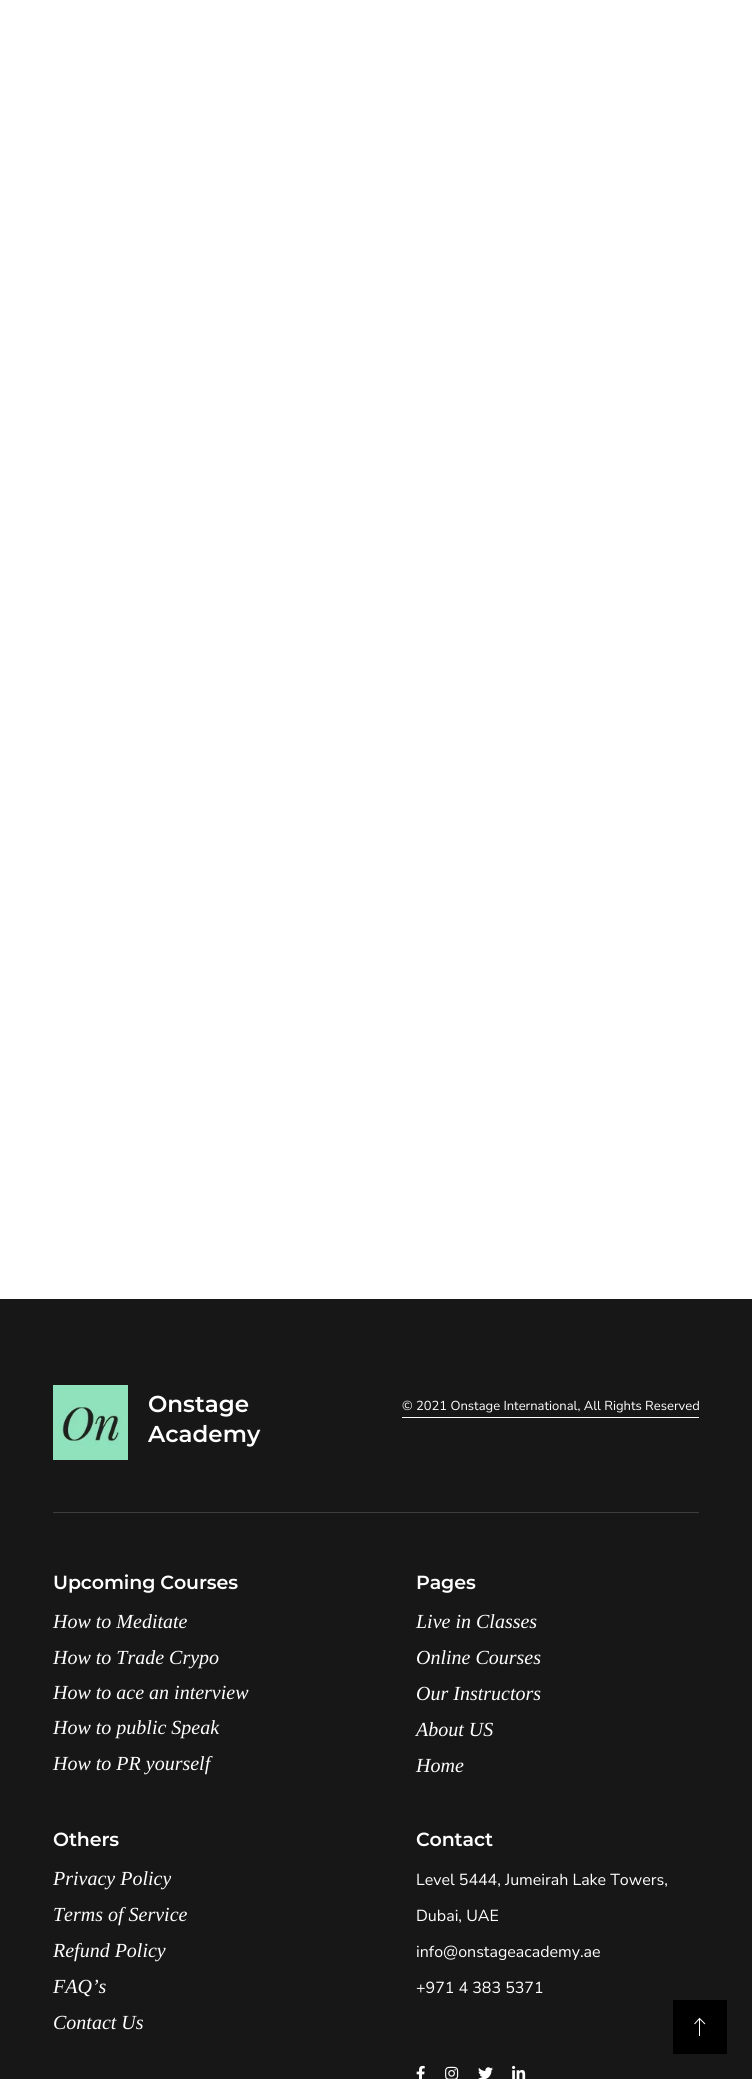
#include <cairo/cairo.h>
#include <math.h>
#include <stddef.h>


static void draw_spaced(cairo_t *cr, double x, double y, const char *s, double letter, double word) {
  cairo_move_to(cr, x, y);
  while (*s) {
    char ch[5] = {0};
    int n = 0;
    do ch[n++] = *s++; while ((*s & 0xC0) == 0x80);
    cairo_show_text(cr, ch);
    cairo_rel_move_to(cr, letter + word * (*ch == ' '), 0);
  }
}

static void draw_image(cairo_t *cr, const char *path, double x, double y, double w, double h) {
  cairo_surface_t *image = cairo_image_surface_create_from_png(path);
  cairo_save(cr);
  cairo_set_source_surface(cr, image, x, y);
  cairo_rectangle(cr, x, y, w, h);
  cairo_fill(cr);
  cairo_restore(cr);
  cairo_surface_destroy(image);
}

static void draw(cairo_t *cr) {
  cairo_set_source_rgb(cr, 1, 1, 1);
  cairo_paint(cr);
  cairo_set_source_rgb(cr, 23 / 255.0, 23 / 255.0, 23 / 255.0);
  cairo_rectangle(cr, 0, 1299, 752, 780);
  cairo_fill(cr);
  draw_image(cr, "images/1.png", 53, 1385, 75, 75);
  cairo_set_source_rgb(cr, 1, 1, 1);
  cairo_rectangle(cr, 402, 1417, 297, 1);
  cairo_fill(cr);
  cairo_set_source_rgb(cr, 62 / 255.0, 62 / 255.0, 62 / 255.0);
  cairo_rectangle(cr, 53, 1512, 646, 1);
  cairo_fill(cr);
  draw_image(cr, "images/2.png", 416, 2065, 9, 14);
  draw_image(cr, "images/3.png", 445, 2066, 14, 13);
  draw_image(cr, "images/4.png", 478, 2067, 15, 12);
  draw_image(cr, "images/5.png", 512, 2065, 14, 14);
  cairo_set_source_rgb(cr, 0, 0, 0);
  cairo_rectangle(cr, 673, 2000, 54, 54);
  cairo_fill(cr);
  cairo_set_source_rgb(cr, 1, 1, 1);
  cairo_rectangle(cr, 699, 2019, 1, 17);
  cairo_fill(cr);
  cairo_new_path(cr);
  cairo_move_to(cr, 694.5, 2024);
  cairo_line_to(cr, 699.5, 2018.5);
  cairo_line_to(cr, 705, 2024);
  cairo_set_line_width(cr, 1);
  cairo_stroke(cr);
  cairo_select_font_face(cr, "Montserrat SemiBold", CAIRO_FONT_SLANT_NORMAL, CAIRO_FONT_WEIGHT_NORMAL);
  cairo_set_font_size(cr, 23);
  cairo_move_to(cr, 148, 1412);
  cairo_show_text(cr, "Onstage");
  cairo_move_to(cr, 148, 1442);
  cairo_show_text(cr, "Academy");
  cairo_select_font_face(cr, "Nunito Sans", CAIRO_FONT_SLANT_NORMAL, CAIRO_FONT_WEIGHT_NORMAL);
  cairo_set_font_size(cr, 13);
  cairo_move_to(cr, 402, 1410);
  cairo_show_text(cr, "© 2021 Onstage International, All Rights Reserved");
  cairo_select_font_face(cr, "Montserrat SemiBold", CAIRO_FONT_SLANT_NORMAL, CAIRO_FONT_WEIGHT_NORMAL);
  cairo_set_font_size(cr, 19);
  draw_spaced(cr, 53, 1589, "Upcoming Courses", -0.1, 0);
  cairo_select_font_face(cr, "Liberation Serif", CAIRO_FONT_SLANT_ITALIC, CAIRO_FONT_WEIGHT_NORMAL);
  cairo_set_font_size(cr, 20);
  cairo_move_to(cr, 53, 1628);
  cairo_show_text(cr, "How to Meditate");
  cairo_move_to(cr, 53, 1664);
  cairo_show_text(cr, "How to Trade Crypo");
  cairo_move_to(cr, 53, 1699);
  cairo_show_text(cr, "How to ace an interview");
  cairo_move_to(cr, 53, 1734);
  cairo_show_text(cr, "How to public Speak");
  cairo_move_to(cr, 53, 1770);
  cairo_show_text(cr, "How to PR yourself");
  cairo_select_font_face(cr, "Montserrat SemiBold", CAIRO_FONT_SLANT_NORMAL, CAIRO_FONT_WEIGHT_NORMAL);
  cairo_set_font_size(cr, 19);
  draw_spaced(cr, 416, 1589, "Pages", -0.1, 0);
  cairo_select_font_face(cr, "Liberation Serif", CAIRO_FONT_SLANT_ITALIC, CAIRO_FONT_WEIGHT_NORMAL);
  cairo_set_font_size(cr, 20);
  cairo_move_to(cr, 416, 1628);
  cairo_show_text(cr, "Live in Classes");
  cairo_move_to(cr, 416, 1664);
  cairo_show_text(cr, "Online Courses");
  cairo_move_to(cr, 416, 1700);
  cairo_show_text(cr, "Our Instructors");
  cairo_move_to(cr, 416, 1736);
  cairo_show_text(cr, "About US");
  cairo_move_to(cr, 416, 1772);
  cairo_show_text(cr, "Home");
  cairo_select_font_face(cr, "Montserrat SemiBold", CAIRO_FONT_SLANT_NORMAL, CAIRO_FONT_WEIGHT_NORMAL);
  cairo_set_font_size(cr, 19);
  draw_spaced(cr, 53, 1846, "Others", -0.1, 0);
  cairo_select_font_face(cr, "Liberation Serif", CAIRO_FONT_SLANT_ITALIC, CAIRO_FONT_WEIGHT_NORMAL);
  cairo_set_font_size(cr, 20);
  cairo_move_to(cr, 53, 1885);
  cairo_show_text(cr, "Privacy Policy");
  cairo_move_to(cr, 53, 1921);
  cairo_show_text(cr, "Terms of Service");
  cairo_move_to(cr, 53, 1957);
  cairo_show_text(cr, "Refund Policy");
  cairo_move_to(cr, 53, 1993);
  cairo_show_text(cr, "FAQ’s");
  cairo_move_to(cr, 53, 2029);
  cairo_show_text(cr, "Contact Us");
  cairo_select_font_face(cr, "Montserrat SemiBold", CAIRO_FONT_SLANT_NORMAL, CAIRO_FONT_WEIGHT_NORMAL);
  cairo_set_font_size(cr, 19);
  draw_spaced(cr, 416, 1846, "Contact", -0.1, 0);
  cairo_select_font_face(cr, "Nunito Sans", CAIRO_FONT_SLANT_NORMAL, CAIRO_FONT_WEIGHT_NORMAL);
  cairo_set_font_size(cr, 16);
  cairo_move_to(cr, 416, 1885);
  cairo_show_text(cr, "Level 5444, Jumeirah Lake Towers,");
  cairo_move_to(cr, 416, 1921);
  cairo_show_text(cr, "Dubai, UAE");
  cairo_move_to(cr, 416, 1957);
  cairo_show_text(cr, "info@onstageacademy.ae");
  cairo_move_to(cr, 416, 1993);
  cairo_show_text(cr, "+971 4 383 5371");
}

int main(void) {
  cairo_surface_t *surface = cairo_image_surface_create(CAIRO_FORMAT_RGB24, 752, 2079);
  cairo_t *cr = cairo_create(surface);
  cairo_font_options_t *options = cairo_font_options_create();
  cairo_font_options_set_hint_metrics(options, CAIRO_HINT_METRICS_OFF);
  cairo_font_options_set_hint_style(options, CAIRO_HINT_STYLE_NONE);
  cairo_set_font_options(cr, options);
  cairo_set_miter_limit(cr, 4);
  draw(cr);
  cairo_surface_write_to_png(surface, "out.png");
  cairo_font_options_destroy(options);
  cairo_destroy(cr);
  cairo_surface_destroy(surface);
  return 0;
}
